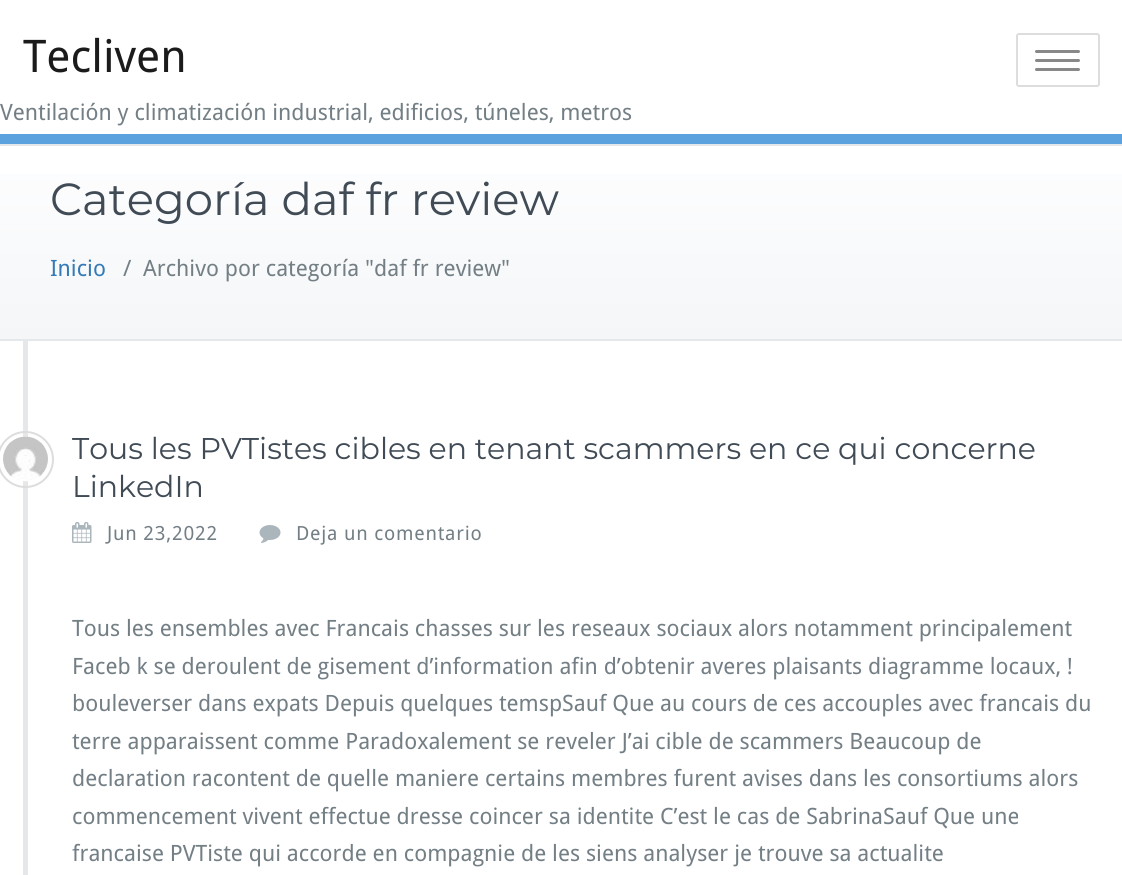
#include <cairo/cairo.h>
#include <math.h>
#include <stddef.h>


static void draw_spaced(cairo_t *cr, double x, double y, const char *s, double letter, double word) {
  cairo_move_to(cr, x, y);
  while (*s) {
    char ch[5] = {0};
    int n = 0;
    do ch[n++] = *s++; while ((*s & 0xC0) == 0x80);
    cairo_show_text(cr, ch);
    cairo_rel_move_to(cr, letter + word * (*ch == ' '), 0);
  }
}

static void rounded_rect(cairo_t *cr, double x, double y, double w, double h, double r) {
  cairo_new_sub_path(cr);
  cairo_arc(cr, x + w - r, y + h - r, r, 0, M_PI / 2);
  cairo_arc(cr, x + r, y + h - r, r, M_PI / 2, M_PI);
  cairo_arc(cr, x + r, y + r, r, M_PI, 1.5 * M_PI);
  cairo_arc(cr, x + w - r, y + r, r, 1.5 * M_PI, 2 * M_PI);
  cairo_close_path(cr);
}

static void draw_image(cairo_t *cr, const char *path, double x, double y, double w, double h) {
  cairo_surface_t *image = cairo_image_surface_create_from_png(path);
  cairo_save(cr);
  cairo_set_source_surface(cr, image, x, y);
  cairo_rectangle(cr, x, y, w, h);
  cairo_fill(cr);
  cairo_restore(cr);
  cairo_surface_destroy(image);
}

static void draw(cairo_t *cr) {
  cairo_pattern_t *gradient;
  cairo_set_source_rgb(cr, 1, 1, 1);
  cairo_paint(cr);
  cairo_set_source_rgb(cr, 92 / 255.0, 162 / 255.0, 223 / 255.0);
  cairo_rectangle(cr, 0, 134, 1122, 10);
  cairo_fill(cr);
  rounded_rect(cr, 1017, 34, 82, 52, 2);
  cairo_set_source_rgb(cr, 221 / 255.0, 221 / 255.0, 221 / 255.0);
  cairo_stroke(cr);
  cairo_set_source_rgb(cr, 136 / 255.0, 136 / 255.0, 136 / 255.0);
  rounded_rect(cr, 1035, 50, 45, 3, 1.5);
  cairo_fill(cr);
  rounded_rect(cr, 1035, 59, 45, 3, 1.5);
  cairo_fill(cr);
  rounded_rect(cr, 1035, 68, 45, 3, 1.5);
  cairo_fill(cr);
  gradient = cairo_pattern_create_linear(561, 145, 561, 339);
  cairo_pattern_add_color_stop_rgba(gradient, 0, 254 / 255.0, 254 / 255.0, 1, 1);
  cairo_pattern_add_color_stop_rgba(gradient, 1, 244 / 255.0, 246 / 255.0, 247 / 255.0, 1);
  cairo_set_source(cr, gradient);
  cairo_pattern_destroy(gradient);
  cairo_rectangle(cr, 0, 174, 1122, 165);
  cairo_fill(cr);
  cairo_set_source_rgb(cr, 228 / 255.0, 232 / 255.0, 234 / 255.0);
  cairo_rectangle(cr, 0, 144, 1122, 2);
  cairo_fill(cr);
  cairo_rectangle(cr, 0, 339, 1122, 2);
  cairo_fill(cr);
  cairo_rectangle(cr, 23, 341, 5, 534);
  cairo_fill(cr);
  cairo_arc(cr, 25.5, 459.5, 27.5, 0, 2 * M_PI);
  cairo_set_source_rgb(cr, 221 / 255.0, 221 / 255.0, 221 / 255.0);
  cairo_stroke(cr);
  draw_image(cr, "images/1.png", 3, 436, 45, 46);
  draw_image(cr, "images/2.png", 72, 522, 20, 21);
  draw_image(cr, "images/3.png", 259, 525, 22, 18);
  cairo_select_font_face(cr, "Droid Sans", CAIRO_FONT_SLANT_NORMAL, CAIRO_FONT_WEIGHT_NORMAL);
  cairo_set_font_size(cr, 45);
  cairo_set_source_rgb(cr, 27 / 255.0, 27 / 255.0, 27 / 255.0);
  cairo_move_to(cr, 23, 72);
  cairo_show_text(cr, "Tecliven");
  cairo_set_font_size(cr, 22.5);
  cairo_set_source_rgb(cr, 115 / 255.0, 127 / 255.0, 133 / 255.0);
  cairo_move_to(cr, 0, 120);
  cairo_show_text(cr, "Ventilación y climatización industrial, edificios, túneles, metros");
  cairo_select_font_face(cr, "Montserrat", CAIRO_FONT_SLANT_NORMAL, CAIRO_FONT_WEIGHT_NORMAL);
  cairo_set_font_size(cr, 45);
  cairo_set_source_rgb(cr, 64 / 255.0, 75 / 255.0, 86 / 255.0);
  cairo_move_to(cr, 50, 215);
  cairo_show_text(cr, "Categoría daf fr review");
  cairo_select_font_face(cr, "Droid Sans", CAIRO_FONT_SLANT_NORMAL, CAIRO_FONT_WEIGHT_NORMAL);
  cairo_set_font_size(cr, 22.5);
  cairo_set_source_rgb(cr, 51 / 255.0, 122 / 255.0, 183 / 255.0);
  cairo_move_to(cr, 50, 276);
  cairo_show_text(cr, "Inicio");
  cairo_set_source_rgb(cr, 115 / 255.0, 127 / 255.0, 133 / 255.0);
  cairo_move_to(cr, 123, 276);
  cairo_show_text(cr, "/");
  cairo_move_to(cr, 143, 276);
  cairo_show_text(cr, "Archivo por categoría \"daf fr review\"");
  cairo_select_font_face(cr, "Montserrat", CAIRO_FONT_SLANT_NORMAL, CAIRO_FONT_WEIGHT_NORMAL);
  cairo_set_font_size(cr, 30);
  cairo_set_source_rgb(cr, 64 / 255.0, 75 / 255.0, 86 / 255.0);
  cairo_move_to(cr, 72, 459);
  cairo_show_text(cr, "Tous les PVTistes cibles en tenant scammers en ce qui concerne");
  cairo_move_to(cr, 72, 497);
  cairo_show_text(cr, "LinkedIn");
  cairo_select_font_face(cr, "Droid Sans", CAIRO_FONT_SLANT_NORMAL, CAIRO_FONT_WEIGHT_NORMAL);
  cairo_set_font_size(cr, 19.5);
  cairo_set_source_rgb(cr, 115 / 255.0, 127 / 255.0, 133 / 255.0);
  draw_spaced(cr, 107, 540, "Jun 23,2022", 0.75, 0);
  draw_spaced(cr, 296, 540, "Deja un comentario", 0.75, 0);
  cairo_set_font_size(cr, 22.5);
  cairo_move_to(cr, 72, 636);
  cairo_show_text(cr, "Tous les ensembles avec Francais chasses sur les reseaux sociaux alors notamment principalement");
  cairo_move_to(cr, 72, 674);
  cairo_show_text(cr, "Faceb k se deroulent de gisement d’information afin d’obtenir averes plaisants diagramme locaux, !");
  cairo_move_to(cr, 72, 711);
  cairo_show_text(cr, "bouleverser dans expats Depuis quelques temspSauf Que au cours de ces accouples avec francais du");
  cairo_move_to(cr, 72, 749);
  cairo_show_text(cr, "terre apparaissent comme Paradoxalement se reveler J’ai cible de scammers Beaucoup de");
  cairo_move_to(cr, 72, 786);
  cairo_show_text(cr, "declaration racontent de quelle maniere certains membres furent avises dans les consortiums alors");
  cairo_move_to(cr, 72, 824);
  cairo_show_text(cr, "commencement vivent effectue dresse coincer sa identite C’est le cas de SabrinaSauf Que une");
  cairo_move_to(cr, 72, 861);
  cairo_show_text(cr, "francaise PVTiste qui accorde en compagnie de les siens analyser je trouve sa actualite");
}

int main(void) {
  cairo_surface_t *surface = cairo_image_surface_create(CAIRO_FORMAT_RGB24, 1122, 875);
  cairo_t *cr = cairo_create(surface);
  cairo_font_options_t *options = cairo_font_options_create();
  cairo_font_options_set_hint_metrics(options, CAIRO_HINT_METRICS_OFF);
  cairo_font_options_set_hint_style(options, CAIRO_HINT_STYLE_NONE);
  cairo_set_font_options(cr, options);
  cairo_set_miter_limit(cr, 4);
  draw(cr);
  cairo_surface_write_to_png(surface, "out.png");
  cairo_font_options_destroy(options);
  cairo_destroy(cr);
  cairo_surface_destroy(surface);
  return 0;
}
